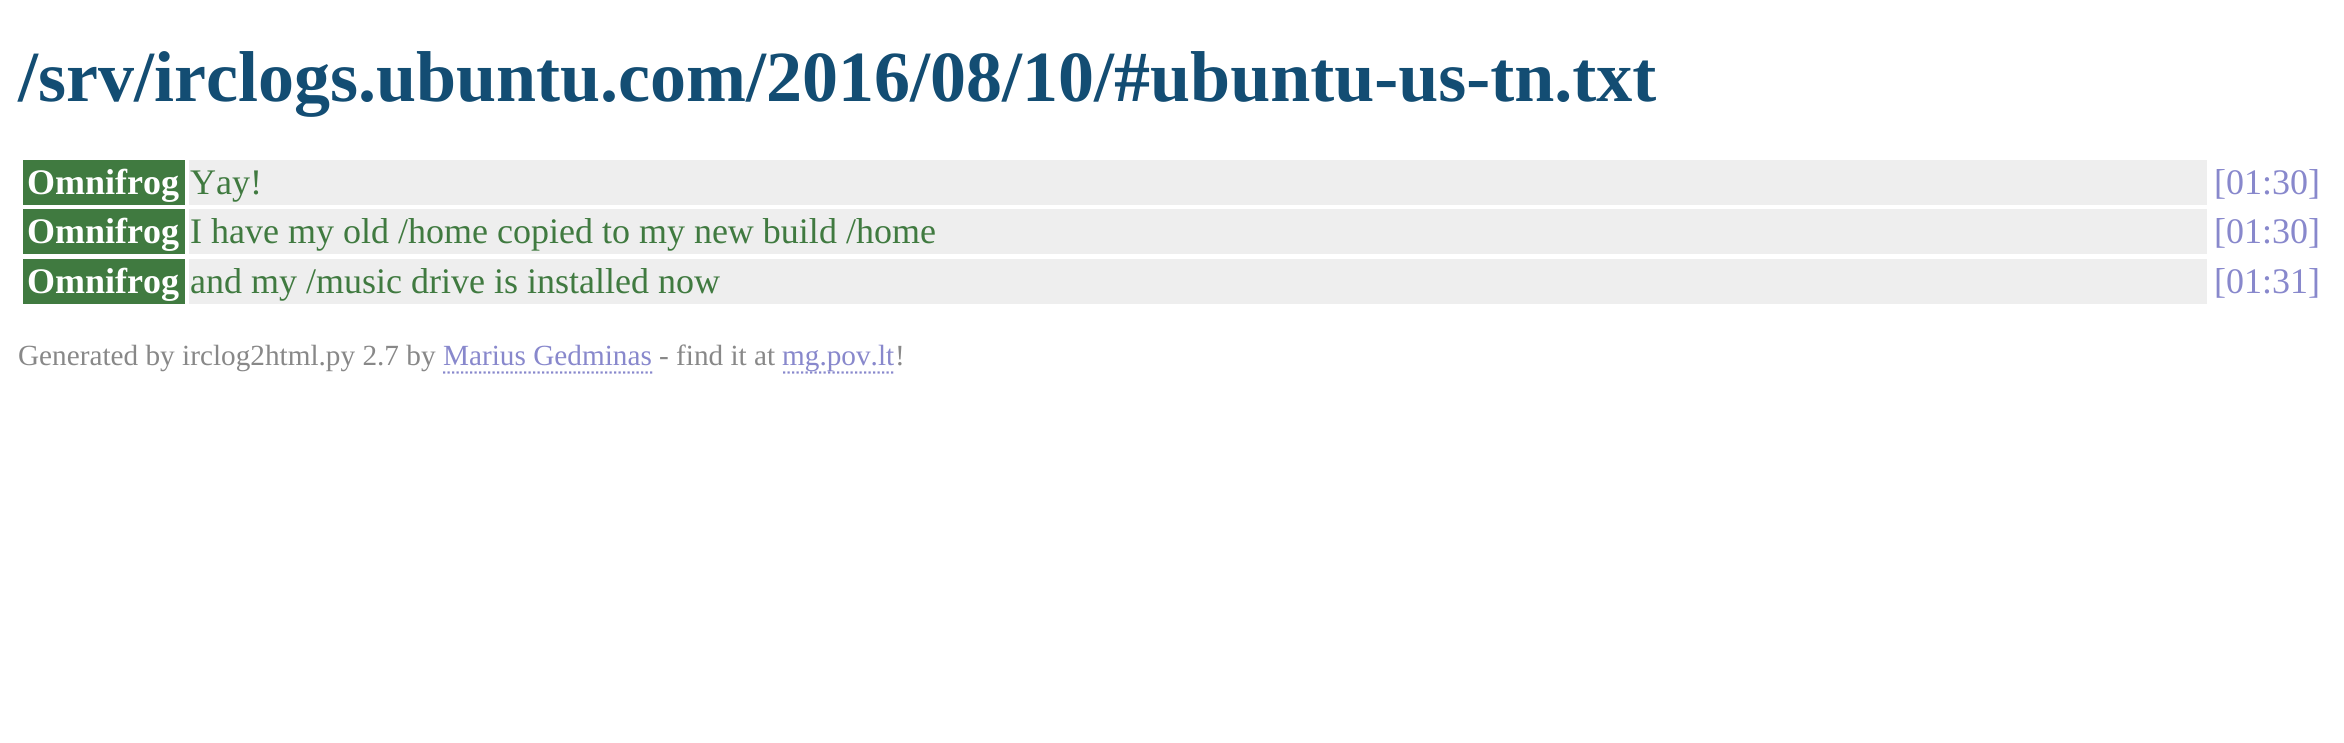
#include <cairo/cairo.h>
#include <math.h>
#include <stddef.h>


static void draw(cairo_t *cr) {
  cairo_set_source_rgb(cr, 1, 1, 1);
  cairo_paint(cr);
  cairo_set_source_rgb(cr, 64 / 255.0, 122 / 255.0, 64 / 255.0);
  cairo_rectangle(cr, 23, 160, 162, 45);
  cairo_fill(cr);
  cairo_set_source_rgb(cr, 238 / 255.0, 238 / 255.0, 238 / 255.0);
  cairo_rectangle(cr, 189, 160, 2018, 45);
  cairo_fill(cr);
  cairo_set_source_rgb(cr, 64 / 255.0, 122 / 255.0, 64 / 255.0);
  cairo_rectangle(cr, 23, 209, 162, 45);
  cairo_fill(cr);
  cairo_set_source_rgb(cr, 238 / 255.0, 238 / 255.0, 238 / 255.0);
  cairo_rectangle(cr, 189, 209, 2018, 45);
  cairo_fill(cr);
  cairo_set_source_rgb(cr, 64 / 255.0, 122 / 255.0, 64 / 255.0);
  cairo_rectangle(cr, 23, 259, 162, 45);
  cairo_fill(cr);
  cairo_set_source_rgb(cr, 238 / 255.0, 238 / 255.0, 238 / 255.0);
  cairo_rectangle(cr, 189, 259, 2018, 45);
  cairo_fill(cr);
  cairo_new_path(cr);
  cairo_move_to(cr, 443, 372.5);
  cairo_line_to(cr, 652.5, 372.5);
  cairo_set_source_rgb(cr, 136 / 255.0, 136 / 255.0, 204 / 255.0);
  cairo_set_line_width(cr, 2.2);
  cairo_set_dash(cr, (double[]){2.25, 2.25}, 2, 0);
  cairo_stroke(cr);
  cairo_new_path(cr);
  cairo_move_to(cr, 783, 372.5);
  cairo_line_to(cr, 895.5, 372.5);
  cairo_stroke(cr);
  cairo_select_font_face(cr, "Liberation Serif", CAIRO_FONT_SLANT_NORMAL, CAIRO_FONT_WEIGHT_BOLD);
  cairo_set_font_size(cr, 72);
  cairo_set_source_rgb(cr, 19 / 255.0, 77 / 255.0, 115 / 255.0);
  cairo_move_to(cr, 18, 101);
  cairo_show_text(cr, "/srv/irclogs.ubuntu.com/2016/08/10/#ubuntu-us-tn.txt");
  cairo_set_font_size(cr, 36);
  cairo_set_source_rgb(cr, 1, 1, 1);
  cairo_move_to(cr, 27, 194);
  cairo_show_text(cr, "Omnifrog");
  cairo_select_font_face(cr, "Liberation Serif", CAIRO_FONT_SLANT_NORMAL, CAIRO_FONT_WEIGHT_NORMAL);
  cairo_set_source_rgb(cr, 64 / 255.0, 122 / 255.0, 64 / 255.0);
  cairo_move_to(cr, 190, 194);
  cairo_show_text(cr, "Yay!");
  cairo_set_source_rgb(cr, 136 / 255.0, 136 / 255.0, 204 / 255.0);
  cairo_move_to(cr, 2214, 194);
  cairo_show_text(cr, "[01:30]");
  cairo_select_font_face(cr, "Liberation Serif", CAIRO_FONT_SLANT_NORMAL, CAIRO_FONT_WEIGHT_BOLD);
  cairo_set_source_rgb(cr, 1, 1, 1);
  cairo_move_to(cr, 27, 243);
  cairo_show_text(cr, "Omnifrog");
  cairo_select_font_face(cr, "Liberation Serif", CAIRO_FONT_SLANT_NORMAL, CAIRO_FONT_WEIGHT_NORMAL);
  cairo_set_source_rgb(cr, 64 / 255.0, 122 / 255.0, 64 / 255.0);
  cairo_move_to(cr, 190, 243);
  cairo_show_text(cr, "I have my old /home copied to my new build /home");
  cairo_set_source_rgb(cr, 136 / 255.0, 136 / 255.0, 204 / 255.0);
  cairo_move_to(cr, 2214, 243);
  cairo_show_text(cr, "[01:30]");
  cairo_select_font_face(cr, "Liberation Serif", CAIRO_FONT_SLANT_NORMAL, CAIRO_FONT_WEIGHT_BOLD);
  cairo_set_source_rgb(cr, 1, 1, 1);
  cairo_move_to(cr, 27, 293);
  cairo_show_text(cr, "Omnifrog");
  cairo_select_font_face(cr, "Liberation Serif", CAIRO_FONT_SLANT_NORMAL, CAIRO_FONT_WEIGHT_NORMAL);
  cairo_set_source_rgb(cr, 64 / 255.0, 122 / 255.0, 64 / 255.0);
  cairo_move_to(cr, 190, 293);
  cairo_show_text(cr, "and my /music drive is installed now");
  cairo_set_source_rgb(cr, 136 / 255.0, 136 / 255.0, 204 / 255.0);
  cairo_move_to(cr, 2214, 293);
  cairo_show_text(cr, "[01:31]");
  cairo_set_font_size(cr, 29.25);
  cairo_set_source_rgb(cr, 136 / 255.0, 136 / 255.0, 136 / 255.0);
  cairo_move_to(cr, 18, 365);
  cairo_show_text(cr, "Generated by irclog2html.py 2.7 by");
  cairo_set_source_rgb(cr, 136 / 255.0, 136 / 255.0, 204 / 255.0);
  cairo_move_to(cr, 443, 365);
  cairo_show_text(cr, "Marius Gedminas");
  cairo_set_source_rgb(cr, 136 / 255.0, 136 / 255.0, 136 / 255.0);
  cairo_move_to(cr, 659, 365);
  cairo_show_text(cr, "- find it at");
  cairo_set_source_rgb(cr, 136 / 255.0, 136 / 255.0, 204 / 255.0);
  cairo_move_to(cr, 782, 365);
  cairo_show_text(cr, "mg.pov.lt");
  cairo_set_source_rgb(cr, 136 / 255.0, 136 / 255.0, 136 / 255.0);
  cairo_move_to(cr, 895, 365);
  cairo_show_text(cr, "!");
}

int main(void) {
  cairo_surface_t *surface = cairo_image_surface_create(CAIRO_FORMAT_RGB24, 2344, 743);
  cairo_t *cr = cairo_create(surface);
  cairo_font_options_t *options = cairo_font_options_create();
  cairo_font_options_set_hint_metrics(options, CAIRO_HINT_METRICS_OFF);
  cairo_font_options_set_hint_style(options, CAIRO_HINT_STYLE_NONE);
  cairo_set_font_options(cr, options);
  cairo_set_miter_limit(cr, 4);
  draw(cr);
  cairo_surface_write_to_png(surface, "out.png");
  cairo_font_options_destroy(options);
  cairo_destroy(cr);
  cairo_surface_destroy(surface);
  return 0;
}
